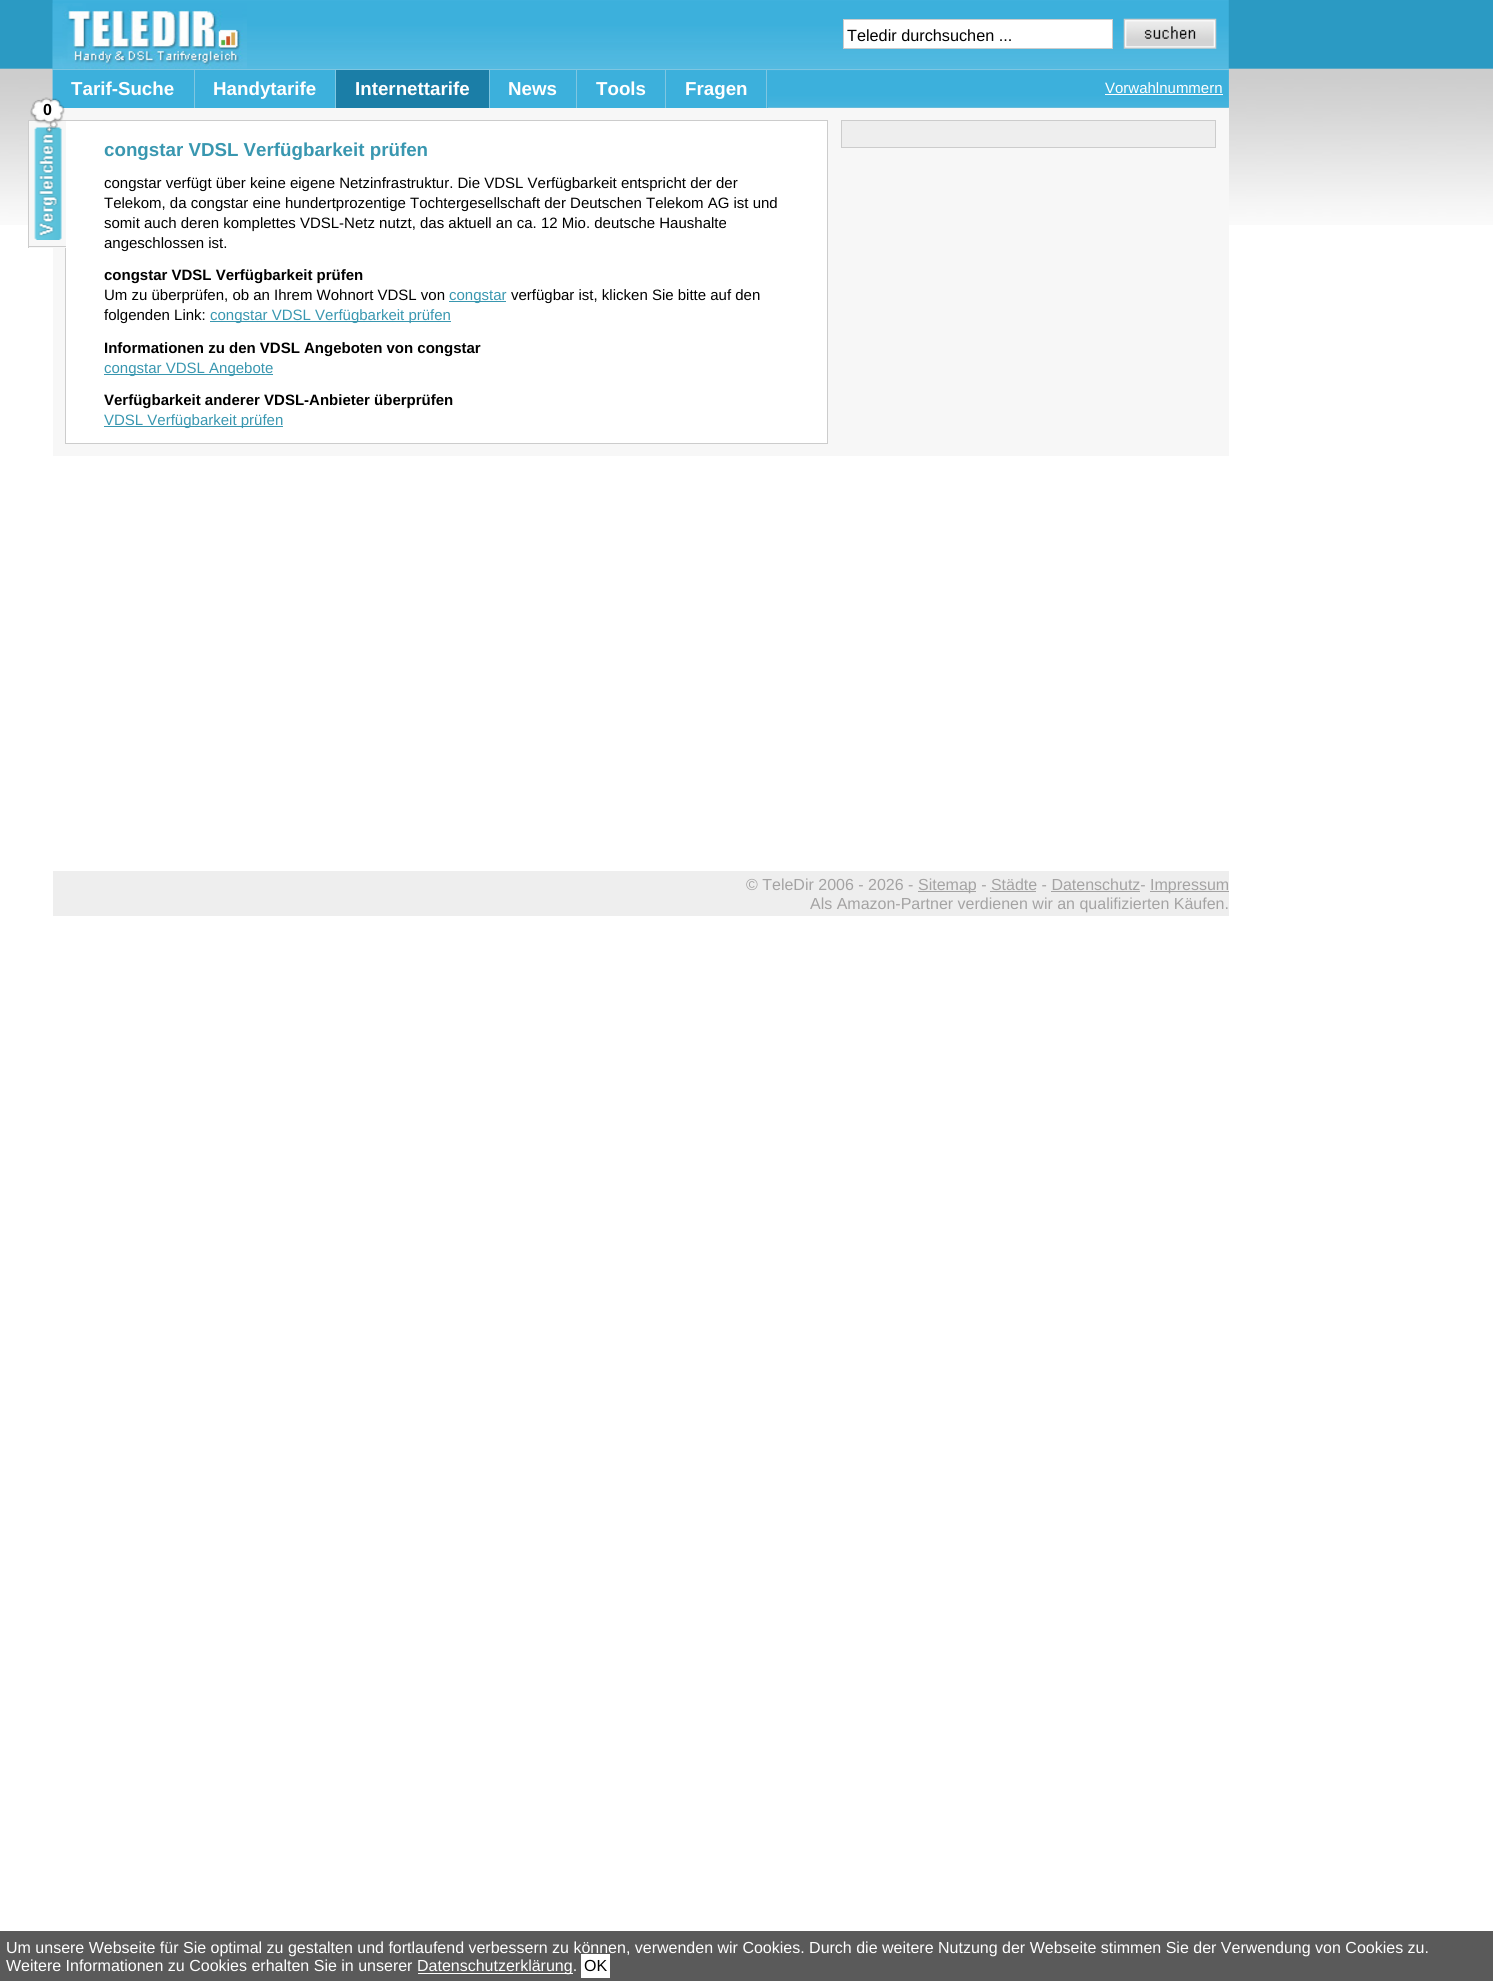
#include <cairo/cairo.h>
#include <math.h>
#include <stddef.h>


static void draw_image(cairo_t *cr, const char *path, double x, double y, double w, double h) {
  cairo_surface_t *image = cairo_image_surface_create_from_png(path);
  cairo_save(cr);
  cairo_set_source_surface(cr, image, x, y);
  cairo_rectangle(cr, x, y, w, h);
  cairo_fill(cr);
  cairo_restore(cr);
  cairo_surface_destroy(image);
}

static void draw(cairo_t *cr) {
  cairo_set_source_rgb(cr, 1, 1, 1);
  cairo_paint(cr);
  draw_image(cr, "images/1.png", 0, 0, 1493, 225);
  cairo_set_source_rgb(cr, 247 / 255.0, 247 / 255.0, 247 / 255.0);
  cairo_rectangle(cr, 53, 108, 1176, 348);
  cairo_fill(cr);
  cairo_set_source_rgb(cr, 1, 1, 1);
  cairo_rectangle(cr, 65.5, 120.5, 762, 323);
  cairo_fill_preserve(cr);
  cairo_set_source_rgb(cr, 204 / 255.0, 204 / 255.0, 204 / 255.0);
  cairo_set_line_width(cr, 1);
  cairo_stroke(cr);
  cairo_set_source_rgb(cr, 247 / 255.0, 247 / 255.0, 247 / 255.0);
  cairo_rectangle(cr, 29, 121, 37, 127);
  cairo_fill(cr);
  draw_image(cr, "images/2.png", 34, 127, 28, 113);
  cairo_set_source_rgb(cr, 204 / 255.0, 204 / 255.0, 204 / 255.0);
  cairo_rectangle(cr, 28, 120, 38, 1);
  cairo_fill(cr);
  cairo_rectangle(cr, 28, 246, 38, 1);
  cairo_fill(cr);
  cairo_rectangle(cr, 28, 120, 1, 128);
  cairo_fill(cr);
  draw_image(cr, "images/4.png", 52, 0, 1177, 108);
  draw_image(cr, "images/8.png", 52, 69, 1177, 39);
  cairo_set_source_rgb(cr, 60 / 255.0, 176 / 255.0, 220 / 255.0);
  cairo_rectangle(cr, 53, 70, 141, 38);
  cairo_fill(cr);
  draw_image(cr, "images/3.png", 30, 97, 35, 37);
  draw_image(cr, "images/5.png", 52, 0, 1, 68);
  draw_image(cr, "images/6.png", 52, 3, 195, 66);
  cairo_set_source_rgb(cr, 1, 1, 1);
  cairo_rectangle(cr, 843.5, 19.5, 269, 29);
  cairo_fill_preserve(cr);
  cairo_set_source_rgb(cr, 204 / 255.0, 204 / 255.0, 204 / 255.0);
  cairo_stroke(cr);
  draw_image(cr, "images/7.png", 1123, 18, 94, 31);
  cairo_set_source_rgb(cr, 127 / 255.0, 198 / 255.0, 225 / 255.0);
  cairo_rectangle(cr, 53, 69, 1176, 1);
  cairo_fill(cr);
  cairo_rectangle(cr, 194, 70, 1, 38);
  cairo_fill(cr);
  cairo_set_source_rgb(cr, 60 / 255.0, 176 / 255.0, 220 / 255.0);
  cairo_rectangle(cr, 195, 70, 140, 38);
  cairo_fill(cr);
  cairo_set_source_rgb(cr, 127 / 255.0, 198 / 255.0, 225 / 255.0);
  cairo_rectangle(cr, 335, 70, 1, 38);
  cairo_fill(cr);
  cairo_set_source_rgb(cr, 27 / 255.0, 126 / 255.0, 167 / 255.0);
  cairo_rectangle(cr, 336, 70, 153, 38);
  cairo_fill(cr);
  cairo_set_source_rgb(cr, 127 / 255.0, 198 / 255.0, 225 / 255.0);
  cairo_rectangle(cr, 489, 70, 1, 38);
  cairo_fill(cr);
  cairo_set_source_rgb(cr, 60 / 255.0, 176 / 255.0, 220 / 255.0);
  cairo_rectangle(cr, 490, 70, 175, 38);
  cairo_fill(cr);
  cairo_set_source_rgb(cr, 127 / 255.0, 198 / 255.0, 225 / 255.0);
  cairo_rectangle(cr, 576, 70, 1, 38);
  cairo_fill(cr);
  cairo_rectangle(cr, 665, 70, 1, 38);
  cairo_fill(cr);
  cairo_set_source_rgb(cr, 60 / 255.0, 176 / 255.0, 220 / 255.0);
  cairo_rectangle(cr, 666, 70, 102, 38);
  cairo_fill(cr);
  cairo_set_source_rgb(cr, 127 / 255.0, 198 / 255.0, 225 / 255.0);
  cairo_rectangle(cr, 766, 70, 1, 38);
  cairo_fill(cr);
  cairo_set_source_rgb(cr, 1, 1, 1);
  cairo_rectangle(cr, 1105, 94, 118, 1);
  cairo_fill(cr);
  cairo_set_source_rgb(cr, 238 / 255.0, 238 / 255.0, 238 / 255.0);
  cairo_rectangle(cr, 841.5, 120.5, 374, 27);
  cairo_fill_preserve(cr);
  cairo_set_source_rgb(cr, 204 / 255.0, 204 / 255.0, 204 / 255.0);
  cairo_stroke(cr);
  cairo_set_source_rgb(cr, 57 / 255.0, 151 / 255.0, 176 / 255.0);
  cairo_rectangle(cr, 449, 301, 57, 1);
  cairo_fill(cr);
  cairo_rectangle(cr, 210, 321, 241, 1);
  cairo_fill(cr);
  cairo_rectangle(cr, 104, 374, 169, 1);
  cairo_fill(cr);
  cairo_rectangle(cr, 104, 426, 179, 1);
  cairo_fill(cr);
  cairo_set_source_rgb(cr, 238 / 255.0, 238 / 255.0, 238 / 255.0);
  cairo_rectangle(cr, 53, 871, 1176, 45);
  cairo_fill(cr);
  cairo_set_source_rgb(cr, 164 / 255.0, 163 / 255.0, 163 / 255.0);
  cairo_rectangle(cr, 918, 891, 58, 1);
  cairo_fill(cr);
  cairo_rectangle(cr, 1150, 891, 79, 1);
  cairo_fill(cr);
  cairo_rectangle(cr, 990, 891, 46, 1);
  cairo_fill(cr);
  cairo_rectangle(cr, 1051, 891, 89, 1);
  cairo_fill(cr);
  cairo_set_source_rgb(cr, 90 / 255.0, 90 / 255.0, 90 / 255.0);
  cairo_rectangle(cr, 0, 1931, 1493, 50);
  cairo_fill(cr);
  cairo_set_source_rgb(cr, 1, 1, 1);
  cairo_rectangle(cr, 418, 1973, 155, 1);
  cairo_fill(cr);
  cairo_rectangle(cr, 581, 1954, 29, 24);
  cairo_fill(cr);
  cairo_select_font_face(cr, "Liberation Sans", CAIRO_FONT_SLANT_NORMAL, CAIRO_FONT_WEIGHT_BOLD);
  cairo_set_font_size(cr, 16);
  cairo_set_source_rgb(cr, 0, 0, 0);
  cairo_move_to(cr, 43, 115);
  cairo_show_text(cr, "0");
  cairo_select_font_face(cr, "Liberation Sans", CAIRO_FONT_SLANT_NORMAL, CAIRO_FONT_WEIGHT_NORMAL);
  cairo_set_font_size(cr, 16.25);
  cairo_move_to(cr, 847, 41);
  cairo_show_text(cr, "Teledir durchsuchen ...");
  cairo_select_font_face(cr, "Liberation Sans", CAIRO_FONT_SLANT_NORMAL, CAIRO_FONT_WEIGHT_BOLD);
  cairo_set_font_size(cr, 18.75);
  cairo_set_source_rgb(cr, 1, 1, 1);
  cairo_move_to(cr, 71, 95);
  cairo_show_text(cr, "Tarif-Suche");
  cairo_move_to(cr, 213, 95);
  cairo_show_text(cr, "Handytarife");
  cairo_move_to(cr, 355, 95);
  cairo_show_text(cr, "Internettarife");
  cairo_move_to(cr, 508, 95);
  cairo_show_text(cr, "News");
  cairo_move_to(cr, 596, 95);
  cairo_show_text(cr, "Tools");
  cairo_move_to(cr, 685, 95);
  cairo_show_text(cr, "Fragen");
  cairo_select_font_face(cr, "Liberation Sans", CAIRO_FONT_SLANT_NORMAL, CAIRO_FONT_WEIGHT_NORMAL);
  cairo_set_font_size(cr, 15);
  cairo_move_to(cr, 1105, 93);
  cairo_show_text(cr, "Vorwahlnummern");
  cairo_select_font_face(cr, "Liberation Sans", CAIRO_FONT_SLANT_NORMAL, CAIRO_FONT_WEIGHT_BOLD);
  cairo_set_font_size(cr, 18.75);
  cairo_set_source_rgb(cr, 57 / 255.0, 151 / 255.0, 176 / 255.0);
  cairo_move_to(cr, 104, 156);
  cairo_show_text(cr, "congstar VDSL Verfügbarkeit prüfen");
  cairo_select_font_face(cr, "Liberation Sans", CAIRO_FONT_SLANT_NORMAL, CAIRO_FONT_WEIGHT_NORMAL);
  cairo_set_font_size(cr, 15);
  cairo_set_source_rgb(cr, 0, 0, 0);
  cairo_move_to(cr, 104, 188);
  cairo_show_text(cr, "congstar verfügt über keine eigene Netzinfrastruktur. Die VDSL Verfügbarkeit entspricht der der");
  cairo_move_to(cr, 104, 208);
  cairo_show_text(cr, "Telekom, da congstar eine hundertprozentige Tochtergesellschaft der Deutschen Telekom AG ist und");
  cairo_move_to(cr, 104, 228);
  cairo_show_text(cr, "somit auch deren komplettes VDSL-Netz nutzt, das aktuell an ca. 12 Mio. deutsche Haushalte");
  cairo_move_to(cr, 104, 248);
  cairo_show_text(cr, "angeschlossen ist.");
  cairo_select_font_face(cr, "Liberation Sans", CAIRO_FONT_SLANT_NORMAL, CAIRO_FONT_WEIGHT_BOLD);
  cairo_move_to(cr, 104, 280);
  cairo_show_text(cr, "congstar VDSL Verfügbarkeit prüfen");
  cairo_select_font_face(cr, "Liberation Sans", CAIRO_FONT_SLANT_NORMAL, CAIRO_FONT_WEIGHT_NORMAL);
  cairo_move_to(cr, 104, 300);
  cairo_show_text(cr, "Um zu überprüfen, ob an Ihrem Wohnort VDSL von");
  cairo_set_source_rgb(cr, 57 / 255.0, 151 / 255.0, 176 / 255.0);
  cairo_move_to(cr, 449, 300);
  cairo_show_text(cr, "congstar");
  cairo_set_source_rgb(cr, 0, 0, 0);
  cairo_move_to(cr, 511, 300);
  cairo_show_text(cr, "verfügbar ist, klicken Sie bitte auf den");
  cairo_move_to(cr, 104, 320);
  cairo_show_text(cr, "folgenden Link:");
  cairo_set_source_rgb(cr, 57 / 255.0, 151 / 255.0, 176 / 255.0);
  cairo_move_to(cr, 210, 320);
  cairo_show_text(cr, "congstar VDSL Verfügbarkeit prüfen");
  cairo_select_font_face(cr, "Liberation Sans", CAIRO_FONT_SLANT_NORMAL, CAIRO_FONT_WEIGHT_BOLD);
  cairo_set_source_rgb(cr, 0, 0, 0);
  cairo_move_to(cr, 104, 353);
  cairo_show_text(cr, "Informationen zu den VDSL Angeboten von congstar");
  cairo_select_font_face(cr, "Liberation Sans", CAIRO_FONT_SLANT_NORMAL, CAIRO_FONT_WEIGHT_NORMAL);
  cairo_set_source_rgb(cr, 57 / 255.0, 151 / 255.0, 176 / 255.0);
  cairo_move_to(cr, 104, 373);
  cairo_show_text(cr, "congstar VDSL Angebote");
  cairo_select_font_face(cr, "Liberation Sans", CAIRO_FONT_SLANT_NORMAL, CAIRO_FONT_WEIGHT_BOLD);
  cairo_set_source_rgb(cr, 0, 0, 0);
  cairo_move_to(cr, 104, 405);
  cairo_show_text(cr, "Verfügbarkeit anderer VDSL-Anbieter überprüfen");
  cairo_select_font_face(cr, "Liberation Sans", CAIRO_FONT_SLANT_NORMAL, CAIRO_FONT_WEIGHT_NORMAL);
  cairo_set_source_rgb(cr, 57 / 255.0, 151 / 255.0, 176 / 255.0);
  cairo_move_to(cr, 104, 425);
  cairo_show_text(cr, "VDSL Verfügbarkeit prüfen");
  cairo_set_font_size(cr, 16);
  cairo_set_source_rgb(cr, 164 / 255.0, 163 / 255.0, 163 / 255.0);
  cairo_move_to(cr, 746, 890);
  cairo_show_text(cr, "© TeleDir 2006 - 2026 -");
  cairo_move_to(cr, 918, 890);
  cairo_show_text(cr, "Sitemap - Städte - Datenschutz-");
  cairo_move_to(cr, 1150, 890);
  cairo_show_text(cr, "Impressum");
  cairo_move_to(cr, 810, 909);
  cairo_show_text(cr, "Als Amazon-Partner verdienen wir an qualifizierten Käufen.");
  cairo_set_source_rgb(cr, 1, 1, 1);
  cairo_move_to(cr, 6, 1953);
  cairo_show_text(cr, "Um unsere Webseite für Sie optimal zu gestalten und fortlaufend verbessern zu können, verwenden wir Cookies. Durch die weitere Nutzung der Webseite stimmen Sie der Verwendung von Cookies zu.");
  cairo_move_to(cr, 6, 1971);
  cairo_show_text(cr, "Weitere Informationen zu Cookies erhalten Sie in unserer");
  cairo_move_to(cr, 417, 1971);
  cairo_show_text(cr, "Datenschutzerklärung.");
  cairo_set_source_rgb(cr, 0, 0, 0);
  cairo_move_to(cr, 584, 1971);
  cairo_show_text(cr, "OK");
}

int main(void) {
  cairo_surface_t *surface = cairo_image_surface_create(CAIRO_FORMAT_RGB24, 1493, 1981);
  cairo_t *cr = cairo_create(surface);
  cairo_font_options_t *options = cairo_font_options_create();
  cairo_font_options_set_hint_metrics(options, CAIRO_HINT_METRICS_OFF);
  cairo_font_options_set_hint_style(options, CAIRO_HINT_STYLE_NONE);
  cairo_set_font_options(cr, options);
  cairo_set_miter_limit(cr, 4);
  draw(cr);
  cairo_surface_write_to_png(surface, "out.png");
  cairo_font_options_destroy(options);
  cairo_destroy(cr);
  cairo_surface_destroy(surface);
  return 0;
}
